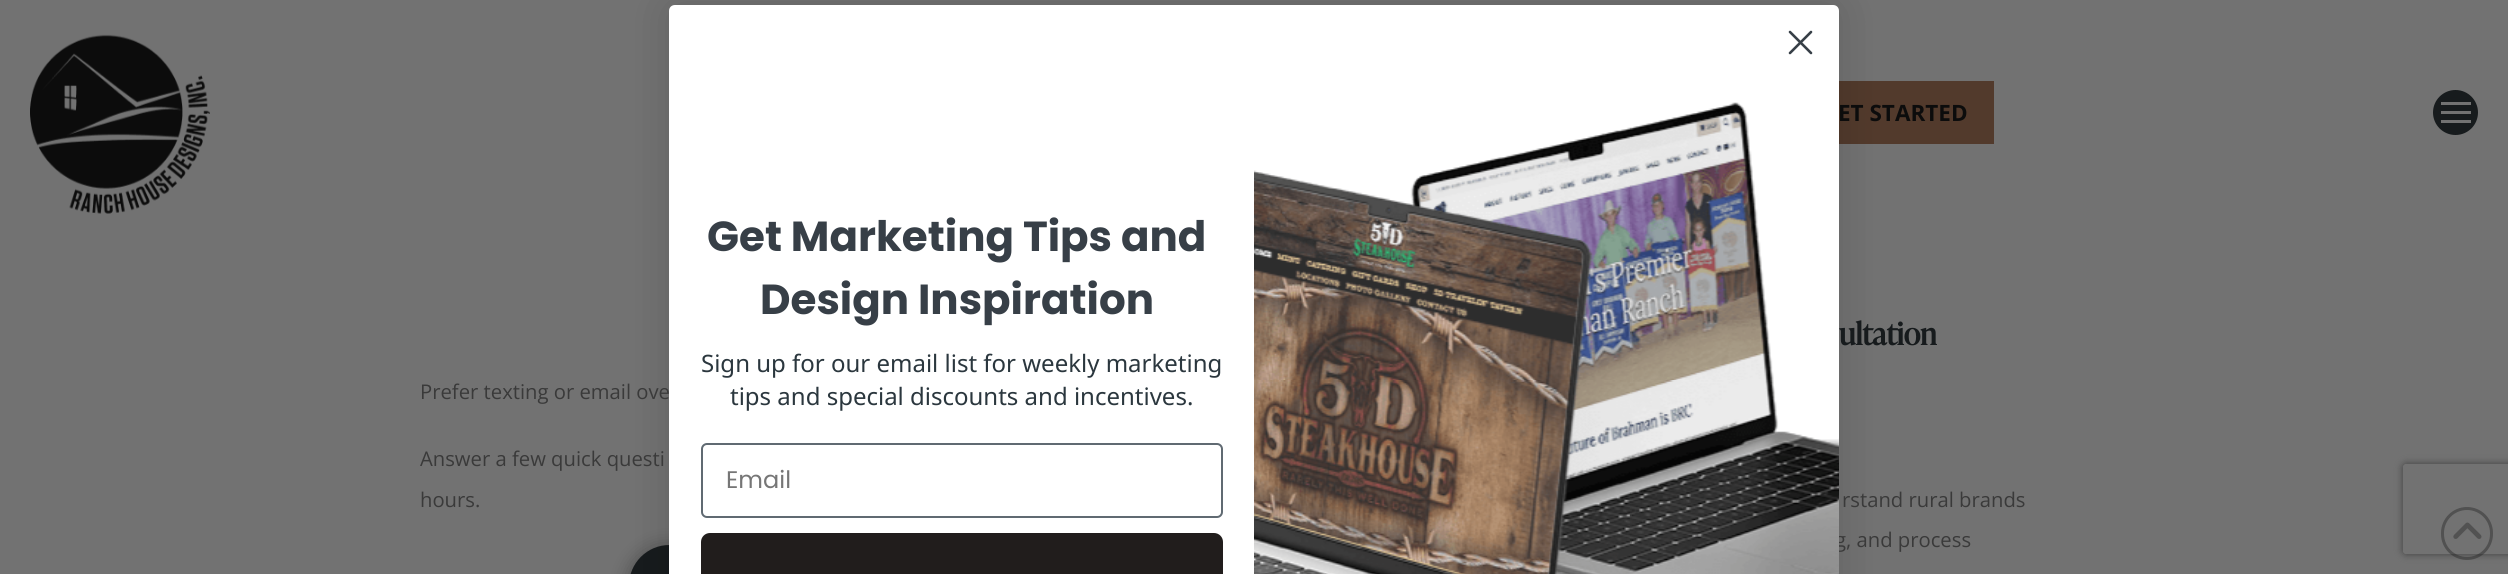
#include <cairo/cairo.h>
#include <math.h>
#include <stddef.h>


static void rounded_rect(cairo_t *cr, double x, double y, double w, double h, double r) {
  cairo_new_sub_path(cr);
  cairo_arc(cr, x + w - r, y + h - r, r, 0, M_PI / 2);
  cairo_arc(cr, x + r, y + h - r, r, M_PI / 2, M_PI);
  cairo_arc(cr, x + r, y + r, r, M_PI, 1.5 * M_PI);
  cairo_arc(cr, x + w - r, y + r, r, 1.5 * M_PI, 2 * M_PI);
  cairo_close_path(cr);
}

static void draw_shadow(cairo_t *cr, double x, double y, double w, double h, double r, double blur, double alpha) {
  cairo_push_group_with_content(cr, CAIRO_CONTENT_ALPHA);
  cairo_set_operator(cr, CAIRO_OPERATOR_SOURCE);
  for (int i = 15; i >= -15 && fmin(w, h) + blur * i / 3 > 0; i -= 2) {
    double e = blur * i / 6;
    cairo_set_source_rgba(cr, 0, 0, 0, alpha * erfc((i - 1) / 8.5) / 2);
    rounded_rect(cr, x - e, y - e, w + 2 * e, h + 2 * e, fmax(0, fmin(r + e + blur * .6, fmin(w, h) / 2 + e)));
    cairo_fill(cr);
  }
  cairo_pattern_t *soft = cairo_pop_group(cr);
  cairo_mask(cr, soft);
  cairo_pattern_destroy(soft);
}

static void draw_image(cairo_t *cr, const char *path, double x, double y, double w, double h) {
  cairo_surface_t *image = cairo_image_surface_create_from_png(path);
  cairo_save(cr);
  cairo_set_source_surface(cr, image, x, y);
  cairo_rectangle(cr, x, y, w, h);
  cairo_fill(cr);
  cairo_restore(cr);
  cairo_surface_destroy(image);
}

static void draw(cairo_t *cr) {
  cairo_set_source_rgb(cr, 114 / 255.0, 114 / 255.0, 114 / 255.0);
  cairo_paint(cr);
  draw_image(cr, "images/1.png", 30, 34, 180, 180);
  cairo_set_source_rgb(cr, 82 / 255.0, 58 / 255.0, 44 / 255.0);
  cairo_rectangle(cr, 1839, 81, 155, 63);
  cairo_fill(cr);
  cairo_set_source_rgb(cr, 23 / 255.0, 27 / 255.0, 29 / 255.0);
  cairo_arc(cr, 2455.5, 112.5, 22.5, 0, 2 * M_PI);
  cairo_fill(cr);
  cairo_set_source_rgb(cr, 114 / 255.0, 114 / 255.0, 114 / 255.0);
  cairo_rectangle(cr, 2441, 102, 30, 3);
  cairo_fill(cr);
  cairo_rectangle(cr, 2441, 111, 30, 3);
  cairo_fill(cr);
  cairo_rectangle(cr, 2441, 120, 30, 3);
  cairo_fill(cr);
  cairo_set_source_rgb(cr, 12 / 255.0, 12 / 255.0, 12 / 255.0);
  draw_shadow(cr, 624, 543, 345, 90, 45, 8, 0.25);
  cairo_set_source_rgb(cr, 23 / 255.0, 27 / 255.0, 29 / 255.0);
  rounded_rect(cr, 629, 545, 336, 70, 40.5);
  cairo_fill(cr);
  cairo_save(cr);
  cairo_set_fill_rule(cr, CAIRO_FILL_RULE_EVEN_ODD);
  cairo_new_path(cr);
  cairo_move_to(cr, 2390, 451);
  cairo_line_to(cr, 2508, 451);
  cairo_line_to(cr, 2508, 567);
  cairo_line_to(cr, 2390, 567);
  cairo_close_path(cr);
  cairo_move_to(cr, 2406, 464);
  cairo_line_to(cr, 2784, 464);
  cairo_curve_to(cr, 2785.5, 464, 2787, 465.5, 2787, 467);
  cairo_line_to(cr, 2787, 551);
  cairo_curve_to(cr, 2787, 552.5, 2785.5, 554, 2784, 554);
  cairo_line_to(cr, 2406, 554);
  cairo_curve_to(cr, 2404.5, 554, 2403, 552.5, 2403, 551);
  cairo_line_to(cr, 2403, 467);
  cairo_curve_to(cr, 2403, 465.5, 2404.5, 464, 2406, 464);
  cairo_close_path(cr);
  cairo_clip(cr);
  cairo_set_source_rgb(cr, 63 / 255.0, 63 / 255.0, 63 / 255.0);
  draw_shadow(cr, 2403, 464, 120, 90, 3, 4, 1);
  cairo_restore(cr);
  rounded_rect(cr, 2442.5, 508.5, 49, 50, 24.5);
  cairo_set_source_rgba(cr, 28 / 255.0, 28 / 255.0, 28 / 255.0, 0.38);
  cairo_set_line_width(cr, 3);
  cairo_stroke(cr);
  draw_image(cr, "images/2.png", 2453, 522, 29, 17);
  cairo_set_source_rgb(cr, 0, 0, 0);
  draw_shadow(cr, 669, 5, 1170, 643, 6, 22.5, 0.15);
  cairo_select_font_face(cr, "Open Sans", CAIRO_FONT_SLANT_NORMAL, CAIRO_FONT_WEIGHT_BOLD);
  cairo_set_font_size(cr, 22.5);
  cairo_set_source_rgb(cr, 12 / 255.0, 12 / 255.0, 12 / 255.0);
  cairo_move_to(cr, 1838, 121);
  cairo_show_text(cr, "ET STARTED");
  cairo_select_font_face(cr, "Open Sans", CAIRO_FONT_SLANT_NORMAL, CAIRO_FONT_WEIGHT_NORMAL);
  cairo_set_font_size(cr, 20.25);
  cairo_set_source_rgb(cr, 58 / 255.0, 58 / 255.0, 58 / 255.0);
  cairo_move_to(cr, 420, 399);
  cairo_show_text(cr, "Prefer texting or email ove");
  cairo_move_to(cr, 420, 466);
  cairo_show_text(cr, "Answer a few quick questi");
  cairo_move_to(cr, 420, 507);
  cairo_show_text(cr, "hours.");
  cairo_select_font_face(cr, "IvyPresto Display", CAIRO_FONT_SLANT_NORMAL, CAIRO_FONT_WEIGHT_BOLD);
  cairo_set_font_size(cr, 30.5);
  cairo_set_source_rgb(cr, 23 / 255.0, 27 / 255.0, 29 / 255.0);
  cairo_move_to(cr, 1839, 345);
  cairo_show_text(cr, "ultation");
  cairo_select_font_face(cr, "Open Sans", CAIRO_FONT_SLANT_NORMAL, CAIRO_FONT_WEIGHT_NORMAL);
  cairo_set_font_size(cr, 20.25);
  cairo_set_source_rgb(cr, 58 / 255.0, 58 / 255.0, 58 / 255.0);
  cairo_move_to(cr, 1842, 507);
  cairo_show_text(cr, "rstand rural brands");
  cairo_move_to(cr, 1835, 547);
  cairo_show_text(cr, "g, and process");
  cairo_set_source_rgb(cr, 1, 1, 1);
  cairo_new_path(cr);
  cairo_move_to(cr, 675, 5);
  cairo_line_to(cr, 1833, 5);
  cairo_curve_to(cr, 1836.5, 5, 1839, 7.5, 1839, 11);
  cairo_line_to(cr, 1839, 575);
  cairo_line_to(cr, 669, 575);
  cairo_line_to(cr, 669, 11);
  cairo_curve_to(cr, 669, 7.5, 671.5, 5, 675, 5);
  cairo_close_path(cr);
  cairo_fill(cr);
  cairo_new_path(cr);
  cairo_move_to(cr, 1790, 32);
  cairo_line_to(cr, 1811, 53);
  cairo_move_to(cr, 1790, 53);
  cairo_line_to(cr, 1811, 32);
  cairo_close_path(cr);
  cairo_set_source_rgb(cr, 55 / 255.0, 63 / 255.0, 71 / 255.0);
  cairo_set_line_width(cr, 2.6);
  cairo_set_line_cap(cr, CAIRO_LINE_CAP_ROUND);
  cairo_set_line_join(cr, CAIRO_LINE_JOIN_ROUND);
  cairo_stroke(cr);
  cairo_select_font_face(cr, "Poppins", CAIRO_FONT_SLANT_NORMAL, CAIRO_FONT_WEIGHT_BOLD);
  cairo_set_font_size(cr, 42);
  cairo_move_to(cr, 707, 251);
  cairo_show_text(cr, "Get Marketing Tips and");
  cairo_move_to(cr, 760, 314);
  cairo_show_text(cr, "Design Inspiration");
  cairo_select_font_face(cr, "Noto Sans", CAIRO_FONT_SLANT_NORMAL, CAIRO_FONT_WEIGHT_NORMAL);
  cairo_set_font_size(cr, 24);
  cairo_set_source_rgb(cr, 43 / 255.0, 55 / 255.0, 62 / 255.0);
  cairo_move_to(cr, 701, 372);
  cairo_show_text(cr, "Sign up for our email list for weekly marketing");
  cairo_move_to(cr, 730, 405);
  cairo_show_text(cr, "tips and special discounts and incentives.");
  rounded_rect(cr, 702, 444, 520, 73, 5);
  cairo_set_source_rgb(cr, 96 / 255.0, 106 / 255.0, 114 / 255.0);
  cairo_set_line_width(cr, 2);
  cairo_set_line_cap(cr, CAIRO_LINE_CAP_BUTT);
  cairo_set_line_join(cr, CAIRO_LINE_JOIN_MITER);
  cairo_stroke(cr);
  cairo_select_font_face(cr, "Poppins", CAIRO_FONT_SLANT_NORMAL, CAIRO_FONT_WEIGHT_NORMAL);
  cairo_set_source_rgb(cr, 118 / 255.0, 118 / 255.0, 118 / 255.0);
  cairo_move_to(cr, 726, 488);
  cairo_show_text(cr, "Email");
  cairo_set_source_rgb(cr, 33 / 255.0, 29 / 255.0, 28 / 255.0);
  cairo_new_path(cr);
  cairo_move_to(cr, 710, 533);
  cairo_line_to(cr, 1214, 533);
  cairo_curve_to(cr, 1219, 533, 1223, 537, 1223, 542);
  cairo_line_to(cr, 1223, 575);
  cairo_line_to(cr, 701, 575);
  cairo_line_to(cr, 701, 542);
  cairo_curve_to(cr, 701, 537, 705, 533, 710, 533);
  cairo_close_path(cr);
  cairo_fill(cr);
  draw_image(cr, "images/3.png", 1254, 102, 585, 472);
}

int main(void) {
  cairo_surface_t *surface = cairo_image_surface_create(CAIRO_FORMAT_RGB24, 2508, 574);
  cairo_t *cr = cairo_create(surface);
  cairo_font_options_t *options = cairo_font_options_create();
  cairo_font_options_set_hint_metrics(options, CAIRO_HINT_METRICS_OFF);
  cairo_font_options_set_hint_style(options, CAIRO_HINT_STYLE_NONE);
  cairo_set_font_options(cr, options);
  cairo_set_miter_limit(cr, 4);
  draw(cr);
  cairo_surface_write_to_png(surface, "out.png");
  cairo_font_options_destroy(options);
  cairo_destroy(cr);
  cairo_surface_destroy(surface);
  return 0;
}
